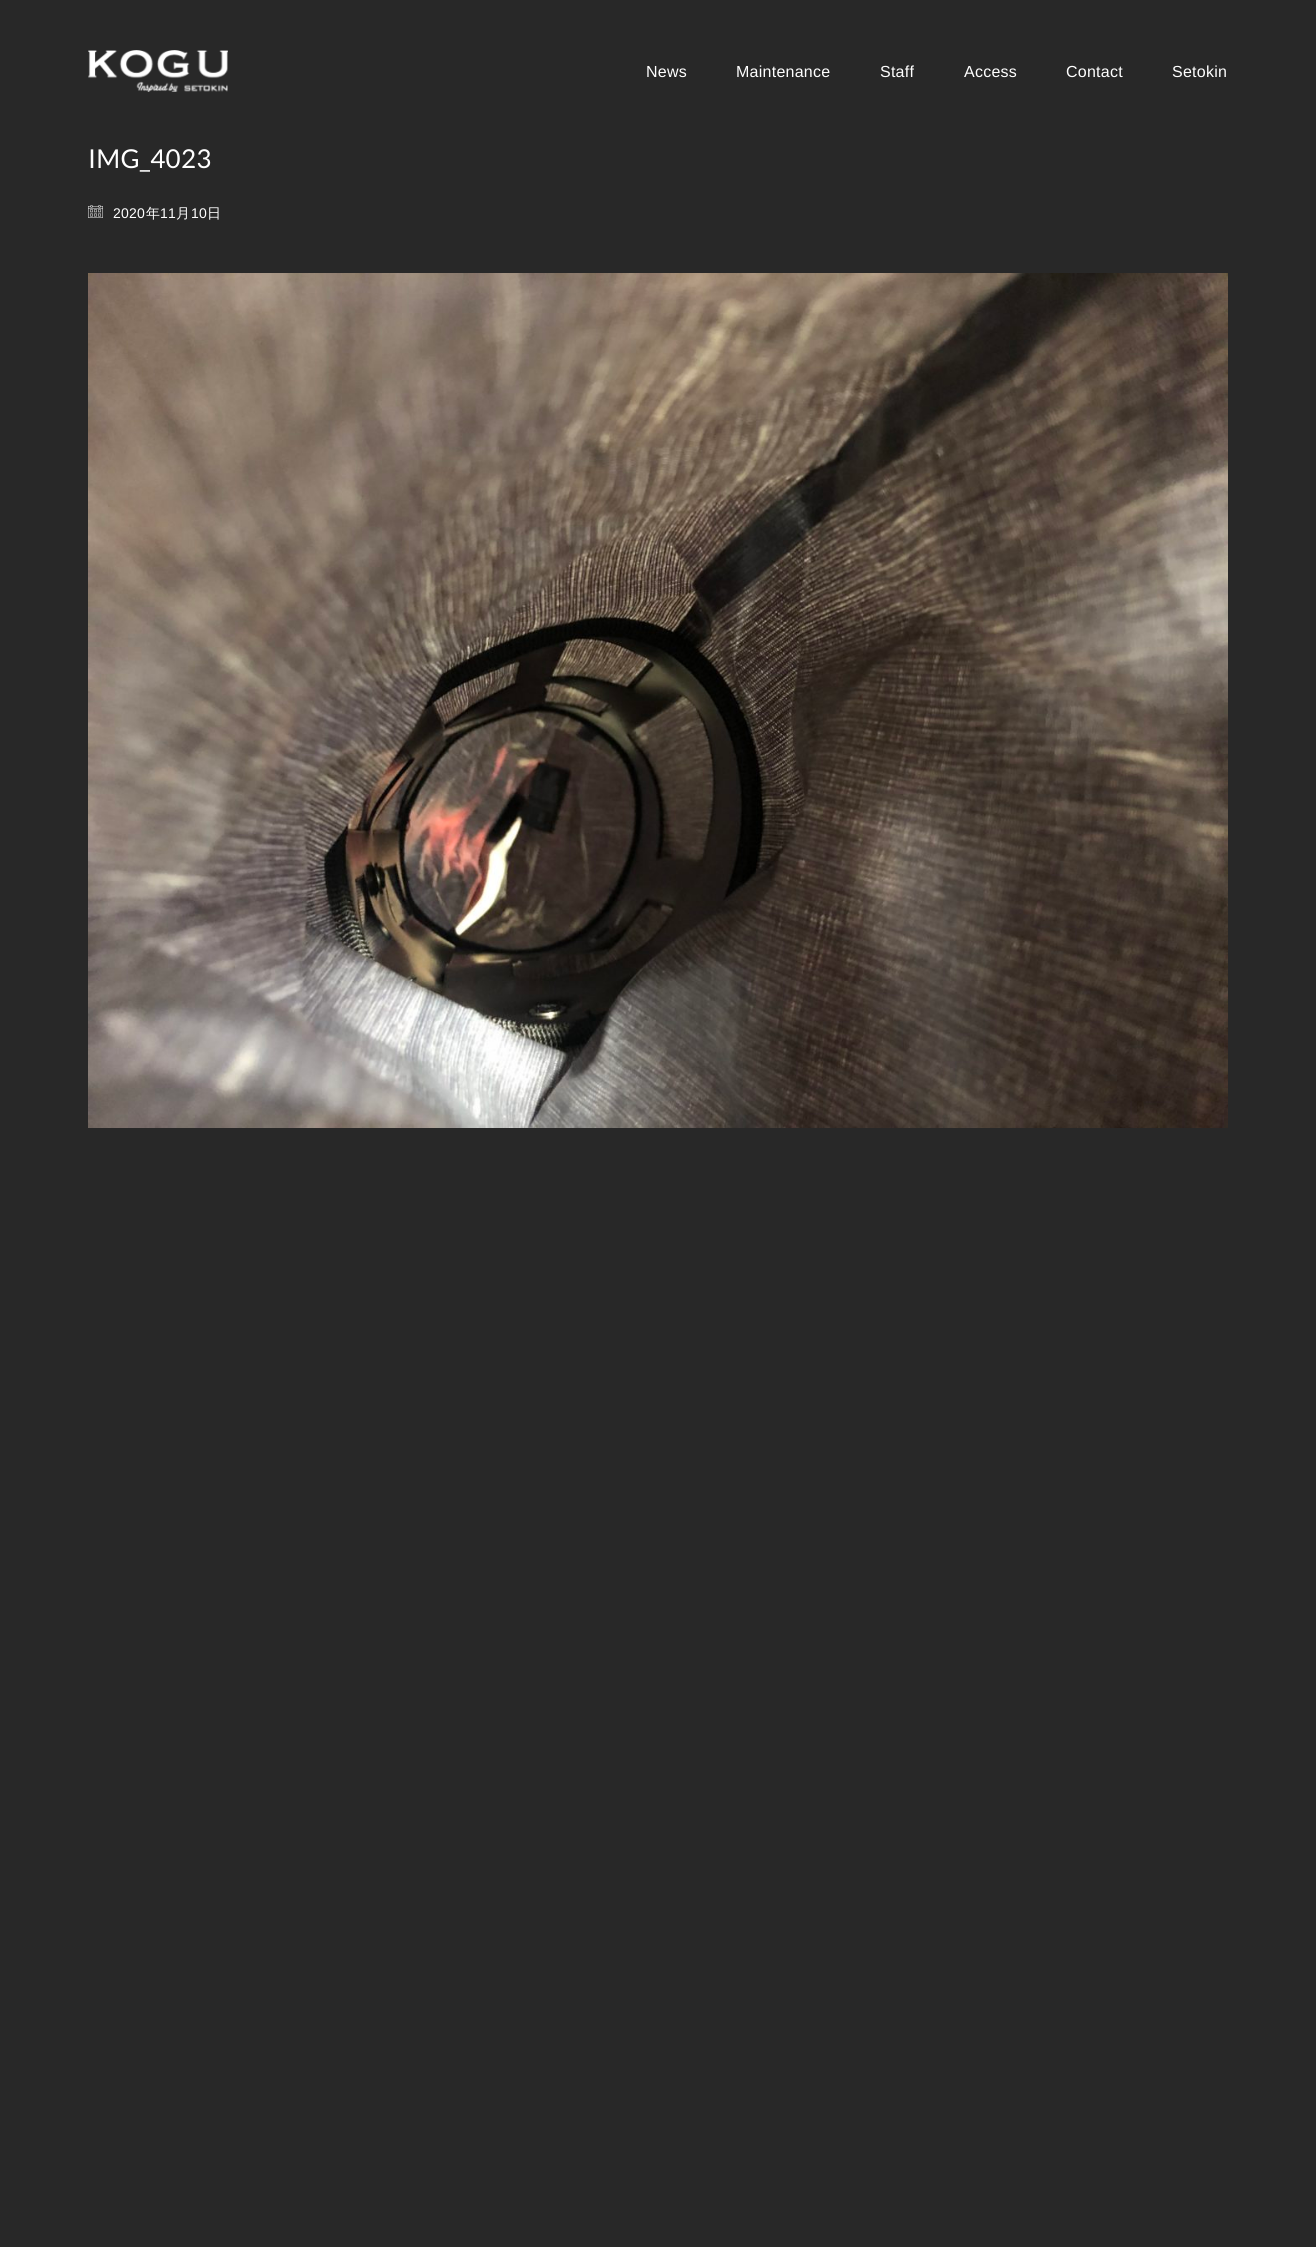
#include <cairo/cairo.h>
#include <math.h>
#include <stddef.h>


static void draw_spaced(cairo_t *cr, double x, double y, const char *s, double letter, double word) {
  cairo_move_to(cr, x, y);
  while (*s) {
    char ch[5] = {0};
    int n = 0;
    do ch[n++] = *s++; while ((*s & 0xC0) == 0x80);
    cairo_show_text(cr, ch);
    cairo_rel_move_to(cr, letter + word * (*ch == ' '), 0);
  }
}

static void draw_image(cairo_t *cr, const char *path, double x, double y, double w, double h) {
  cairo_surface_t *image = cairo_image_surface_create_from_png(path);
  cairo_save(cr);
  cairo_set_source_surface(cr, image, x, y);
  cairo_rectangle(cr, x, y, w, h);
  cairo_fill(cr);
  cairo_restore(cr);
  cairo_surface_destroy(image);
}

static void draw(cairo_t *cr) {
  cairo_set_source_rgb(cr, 40 / 255.0, 40 / 255.0, 40 / 255.0);
  cairo_paint(cr);
  draw_image(cr, "images/1.png", 88, 50, 140, 42);
  draw_image(cr, "images/2.png", 88, 205, 15, 13);
  draw_image(cr, "images/3.png", 88, 273, 1140, 855);
  cairo_select_font_face(cr, "Liberation Sans", CAIRO_FONT_SLANT_NORMAL, CAIRO_FONT_WEIGHT_NORMAL);
  cairo_set_font_size(cr, 16);
  cairo_set_source_rgb(cr, 1, 1, 1);
  draw_spaced(cr, 646, 77, "News", 0.25, 0);
  draw_spaced(cr, 736, 77, "Maintenance", 0.25, 0);
  draw_spaced(cr, 880, 77, "Staff", 0.25, 0);
  draw_spaced(cr, 964, 77, "Access", 0.25, 0);
  draw_spaced(cr, 1066, 77, "Contact", 0.25, 0);
  draw_spaced(cr, 1172, 77, "Setokin", 0.25, 0);
  cairo_select_font_face(cr, "Lato", CAIRO_FONT_SLANT_NORMAL, CAIRO_FONT_WEIGHT_NORMAL);
  cairo_set_font_size(cr, 26);
  draw_spaced(cr, 88, 168, "IMG_4023", 0.25, 0);
  cairo_select_font_face(cr, "Liberation Sans", CAIRO_FONT_SLANT_NORMAL, CAIRO_FONT_WEIGHT_NORMAL);
  cairo_set_font_size(cr, 14);
  draw_spaced(cr, 113, 218, "2020", 0.25, 0);
  cairo_select_font_face(cr, "WenQuanYi Zen Hei Medium", CAIRO_FONT_SLANT_NORMAL, CAIRO_FONT_WEIGHT_NORMAL);
  draw_spaced(cr, 146, 218, "年", 0.25, 0);
  cairo_select_font_face(cr, "Liberation Sans", CAIRO_FONT_SLANT_NORMAL, CAIRO_FONT_WEIGHT_NORMAL);
  draw_spaced(cr, 160, 218, "11", 0.25, 0);
  cairo_select_font_face(cr, "WenQuanYi Zen Hei Medium", CAIRO_FONT_SLANT_NORMAL, CAIRO_FONT_WEIGHT_NORMAL);
  draw_spaced(cr, 176, 218, "月", 0.25, 0);
  cairo_select_font_face(cr, "Liberation Sans", CAIRO_FONT_SLANT_NORMAL, CAIRO_FONT_WEIGHT_NORMAL);
  draw_spaced(cr, 191, 218, "10", 0.25, 0);
  cairo_select_font_face(cr, "WenQuanYi Zen Hei Medium", CAIRO_FONT_SLANT_NORMAL, CAIRO_FONT_WEIGHT_NORMAL);
  draw_spaced(cr, 207, 218, "日", 0.25, 0);
}

int main(void) {
  cairo_surface_t *surface = cairo_image_surface_create(CAIRO_FORMAT_RGB24, 1316, 2247);
  cairo_t *cr = cairo_create(surface);
  cairo_font_options_t *options = cairo_font_options_create();
  cairo_font_options_set_hint_metrics(options, CAIRO_HINT_METRICS_OFF);
  cairo_font_options_set_hint_style(options, CAIRO_HINT_STYLE_NONE);
  cairo_set_font_options(cr, options);
  cairo_set_miter_limit(cr, 4);
  draw(cr);
  cairo_surface_write_to_png(surface, "out.png");
  cairo_font_options_destroy(options);
  cairo_destroy(cr);
  cairo_surface_destroy(surface);
  return 0;
}
